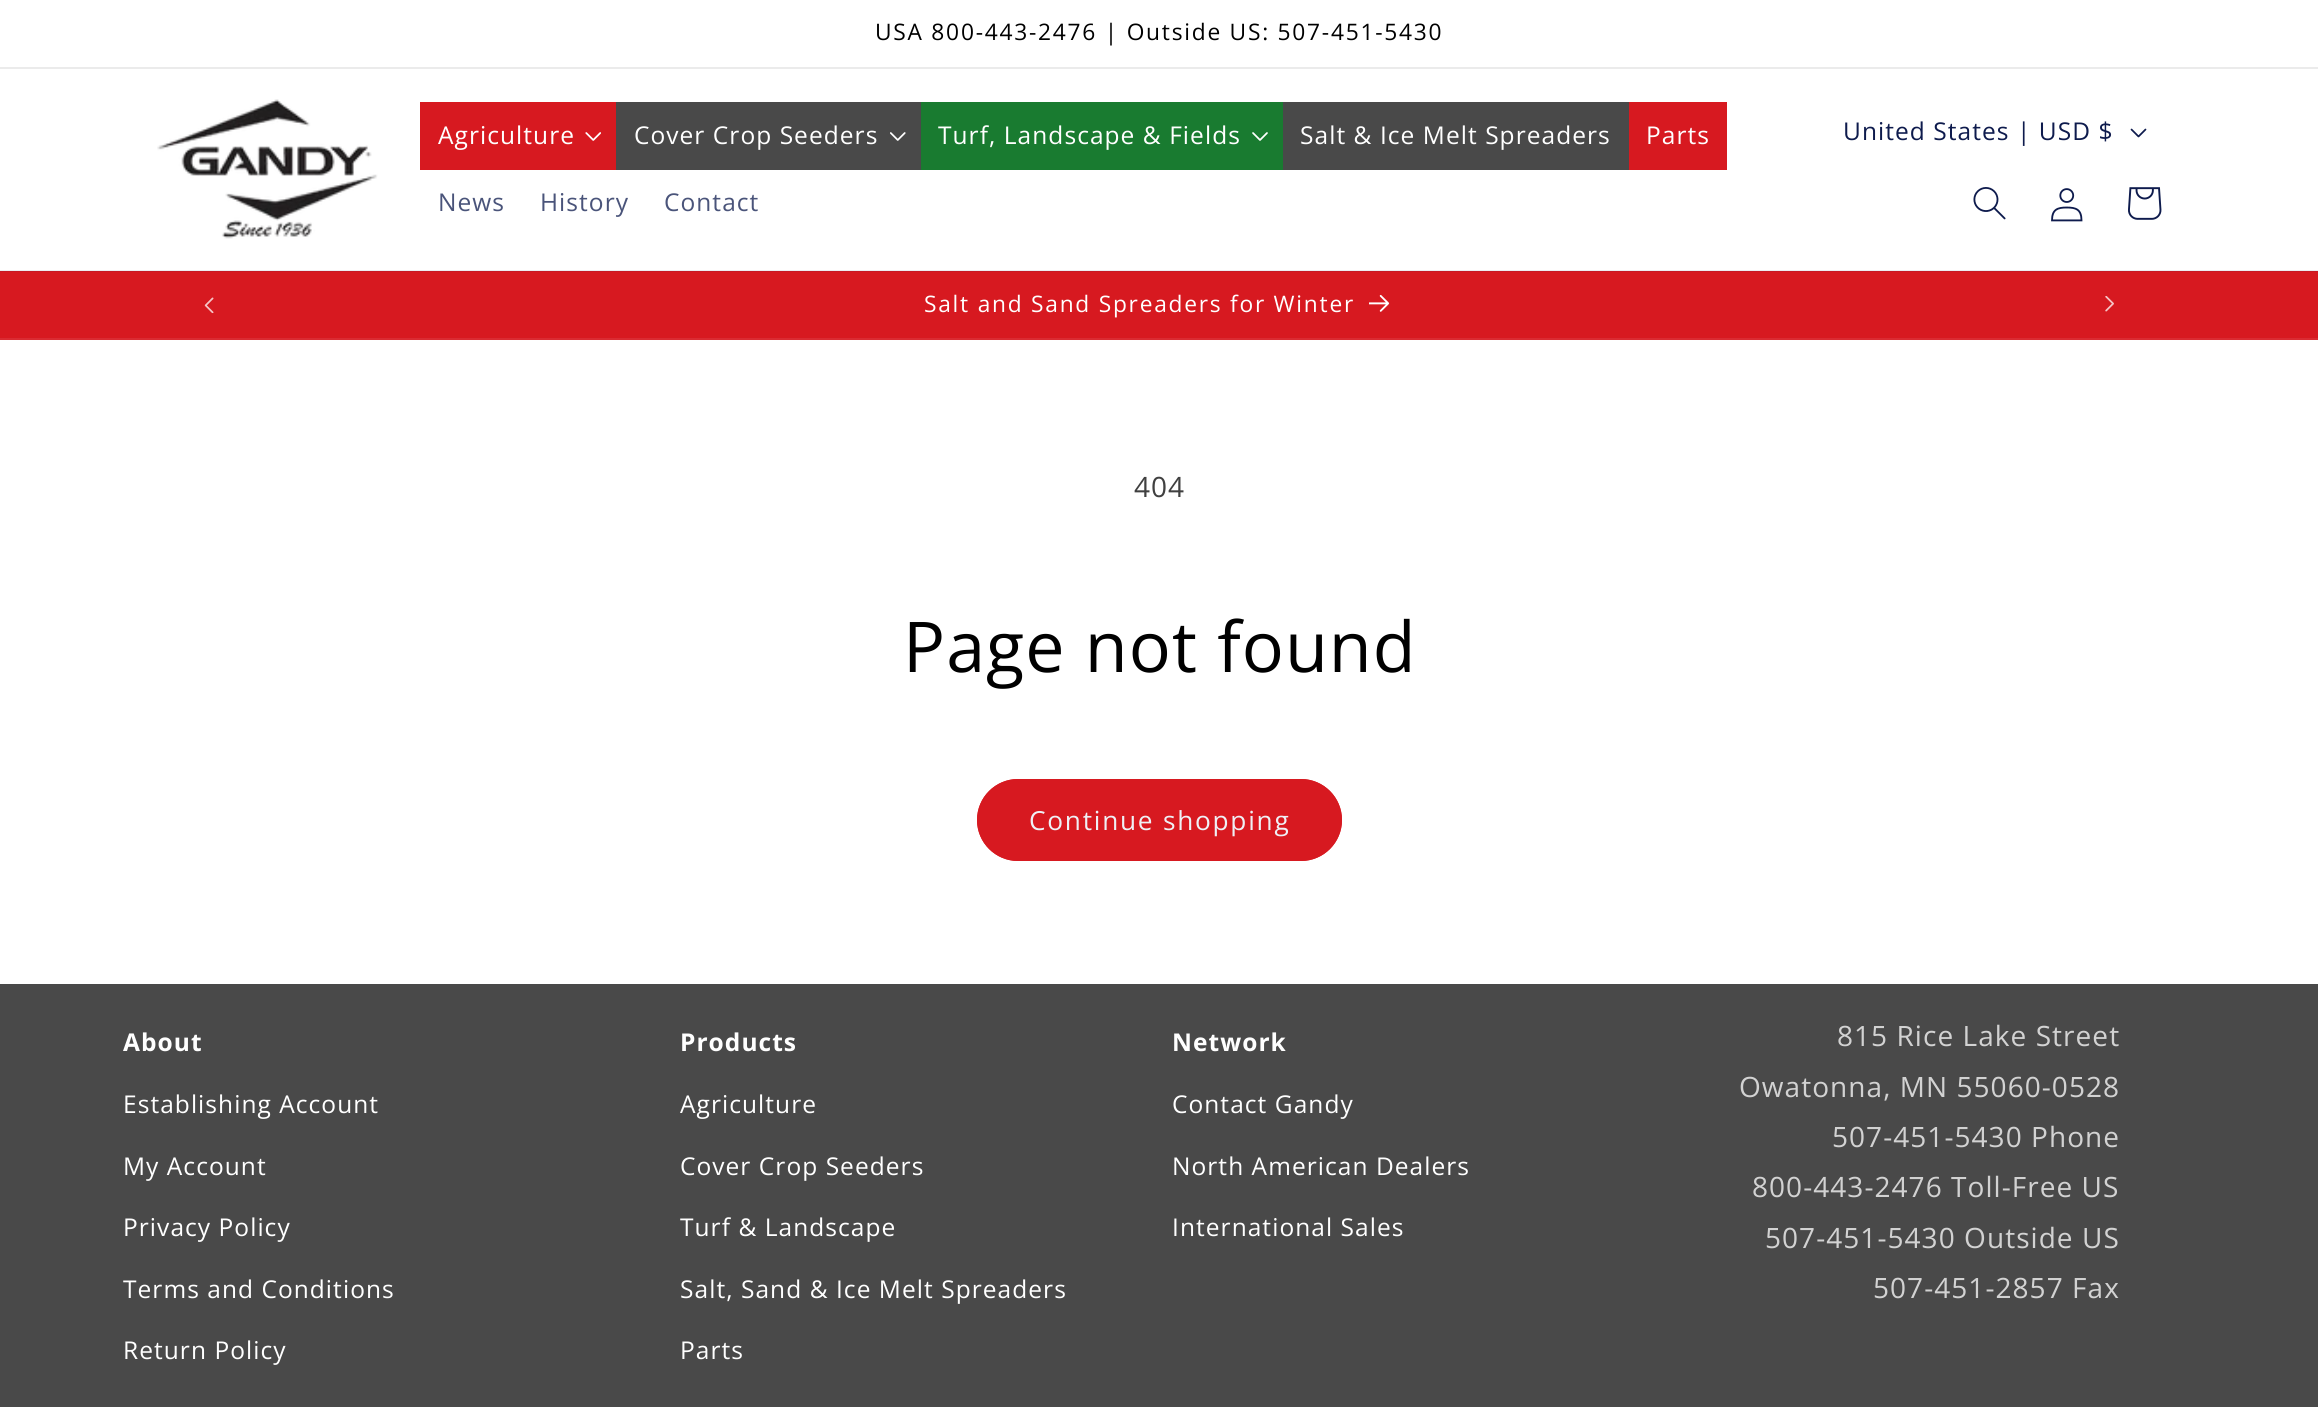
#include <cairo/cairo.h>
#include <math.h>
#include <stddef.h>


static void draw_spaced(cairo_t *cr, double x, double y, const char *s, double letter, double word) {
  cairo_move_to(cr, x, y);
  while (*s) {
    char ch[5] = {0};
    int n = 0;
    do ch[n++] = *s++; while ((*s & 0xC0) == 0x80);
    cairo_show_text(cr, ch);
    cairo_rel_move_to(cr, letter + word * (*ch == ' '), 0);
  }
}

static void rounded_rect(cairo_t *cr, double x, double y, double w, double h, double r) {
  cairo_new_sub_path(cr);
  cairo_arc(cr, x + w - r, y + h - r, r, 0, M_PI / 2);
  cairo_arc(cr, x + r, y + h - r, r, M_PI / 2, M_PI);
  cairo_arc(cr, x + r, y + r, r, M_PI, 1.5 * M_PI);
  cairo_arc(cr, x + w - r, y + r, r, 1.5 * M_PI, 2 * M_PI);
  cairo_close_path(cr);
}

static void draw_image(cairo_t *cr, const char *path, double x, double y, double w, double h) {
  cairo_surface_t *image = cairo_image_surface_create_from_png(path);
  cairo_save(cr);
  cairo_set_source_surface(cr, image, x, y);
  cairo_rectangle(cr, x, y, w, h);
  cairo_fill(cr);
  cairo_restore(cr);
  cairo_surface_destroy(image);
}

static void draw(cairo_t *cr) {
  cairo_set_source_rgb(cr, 1, 1, 1);
  cairo_paint(cr);
  cairo_set_source_rgb(cr, 236 / 255.0, 237 / 255.0, 241 / 255.0);
  cairo_rectangle(cr, 0, 270, 2318, 1);
  cairo_fill(cr);
  cairo_set_source_rgb(cr, 235 / 255.0, 235 / 255.0, 235 / 255.0);
  cairo_rectangle(cr, 0, 67, 2318, 2);
  cairo_fill(cr);
  draw_image(cr, "images/1.png", 157, 99, 221, 140);
  cairo_set_source_rgb(cr, 215 / 255.0, 25 / 255.0, 32 / 255.0);
  cairo_rectangle(cr, 420, 102, 196, 68);
  cairo_fill(cr);
  draw_image(cr, "images/2.png", 585, 132, 16, 9);
  cairo_set_source_rgb(cr, 73 / 255.0, 73 / 255.0, 73 / 255.0);
  cairo_rectangle(cr, 616, 102, 305, 68);
  cairo_fill(cr);
  draw_image(cr, "images/3.png", 890, 132, 16, 9);
  cairo_set_source_rgb(cr, 25 / 255.0, 123 / 255.0, 48 / 255.0);
  cairo_rectangle(cr, 921, 102, 362, 68);
  cairo_fill(cr);
  draw_image(cr, "images/4.png", 1252, 132, 16, 9);
  cairo_set_source_rgb(cr, 73 / 255.0, 73 / 255.0, 73 / 255.0);
  cairo_rectangle(cr, 1283, 102, 346, 68);
  cairo_fill(cr);
  cairo_set_source_rgb(cr, 215 / 255.0, 25 / 255.0, 32 / 255.0);
  cairo_rectangle(cr, 1629, 102, 98, 68);
  cairo_fill(cr);
  draw_image(cr, "images/5.png", 2130, 128, 17, 10);
  draw_image(cr, "images/6.png", 1973, 187, 33, 33);
  draw_image(cr, "images/7.png", 2051, 188, 32, 34);
  draw_image(cr, "images/8.png", 2128, 187, 34, 33);
  cairo_rectangle(cr, 0, 272, 2318, 66);
  cairo_fill(cr);
  cairo_set_source_rgb(cr, 199 / 255.0, 25 / 255.0, 36 / 255.0);
  cairo_rectangle(cr, 0, 271, 2318, 1);
  cairo_fill(cr);
  cairo_set_source_rgb(cr, 218 / 255.0, 43 / 255.0, 50 / 255.0);
  cairo_rectangle(cr, 0, 338, 2318, 2);
  cairo_fill(cr);
  draw_image(cr, "images/9.png", 204, 297, 10, 17);
  draw_image(cr, "images/10.png", 1369, 294, 21, 18);
  draw_image(cr, "images/11.png", 2105, 296, 9, 16);
  cairo_set_source_rgb(cr, 215 / 255.0, 25 / 255.0, 32 / 255.0);
  rounded_rect(cr, 977, 779, 365, 82, 41);
  cairo_fill(cr);
  rounded_rect(cr, 978, 780, 363, 80, 40);
  cairo_stroke(cr);
  cairo_set_source_rgb(cr, 73 / 255.0, 73 / 255.0, 73 / 255.0);
  cairo_rectangle(cr, 0, 984, 2318, 423);
  cairo_fill(cr);
  cairo_select_font_face(cr, "Open Sans", CAIRO_FONT_SLANT_NORMAL, CAIRO_FONT_WEIGHT_NORMAL);
  cairo_set_font_size(cr, 22.75);
  cairo_set_source_rgb(cr, 0, 0, 0);
  draw_spaced(cr, 875, 40, "USA 800-443-2476 | Outside US: 507-451-5430", 1.75, 0);
  cairo_set_font_size(cr, 24.5);
  cairo_set_source_rgb(cr, 1, 1, 1);
  draw_spaced(cr, 438, 144, "Agriculture", 1.05, 0);
  draw_spaced(cr, 634, 144, "Cover Crop Seeders", 1.05, 0);
  draw_spaced(cr, 938, 144, "Turf, Landscape & Fields", 1.05, 0);
  draw_spaced(cr, 1300, 144, "Salt & Ice Melt Spreaders", 1.05, 0);
  draw_spaced(cr, 1646, 144, "Parts", 1.05, 0);
  cairo_set_source_rgb(cr, 74 / 255.0, 84 / 255.0, 122 / 255.0);
  draw_spaced(cr, 438, 211, "News", 1.05, 0);
  draw_spaced(cr, 540, 211, "History", 1.05, 0);
  draw_spaced(cr, 664, 211, "Contact", 1.05, 0);
  cairo_set_source_rgb(cr, 14 / 255.0, 27 / 255.0, 77 / 255.0);
  draw_spaced(cr, 1843, 140, "United States | USD $", 1.05, 0);
  cairo_set_font_size(cr, 22.75);
  cairo_set_source_rgb(cr, 1, 1, 1);
  draw_spaced(cr, 924, 312, "Salt and Sand Spreaders for Winter", 1.75, 0);
  cairo_set_font_size(cr, 28);
  cairo_set_source_rgb(cr, 64 / 255.0, 64 / 255.0, 64 / 255.0);
  draw_spaced(cr, 1134, 497, "404", 1.05, 0);
  cairo_set_font_size(cr, 70);
  cairo_set_source_rgb(cr, 0, 0, 0);
  draw_spaced(cr, 903, 672, "Page not found", 1.05, 0);
  cairo_set_font_size(cr, 26.25);
  cairo_set_source_rgb(cr, 239 / 255.0, 240 / 255.0, 245 / 255.0);
  draw_spaced(cr, 1029, 830, "Continue shopping", 1.75, 0);
  cairo_select_font_face(cr, "Open Sans", CAIRO_FONT_SLANT_NORMAL, CAIRO_FONT_WEIGHT_BOLD);
  cairo_set_font_size(cr, 24.5);
  cairo_set_source_rgb(cr, 1, 1, 1);
  draw_spaced(cr, 123, 1051, "About", 1.05, 0);
  cairo_select_font_face(cr, "Open Sans", CAIRO_FONT_SLANT_NORMAL, CAIRO_FONT_WEIGHT_NORMAL);
  draw_spaced(cr, 123, 1113, "Establishing Account", 1.05, 0);
  draw_spaced(cr, 123, 1175, "My Account", 1.05, 0);
  draw_spaced(cr, 123, 1236, "Privacy Policy", 1.05, 0);
  draw_spaced(cr, 123, 1298, "Terms and Conditions", 1.05, 0);
  draw_spaced(cr, 123, 1359, "Return Policy", 1.05, 0);
  cairo_select_font_face(cr, "Open Sans", CAIRO_FONT_SLANT_NORMAL, CAIRO_FONT_WEIGHT_BOLD);
  draw_spaced(cr, 680, 1051, "Products", 1.05, 0);
  cairo_select_font_face(cr, "Open Sans", CAIRO_FONT_SLANT_NORMAL, CAIRO_FONT_WEIGHT_NORMAL);
  draw_spaced(cr, 680, 1113, "Agriculture", 1.05, 0);
  draw_spaced(cr, 680, 1175, "Cover Crop Seeders", 1.05, 0);
  draw_spaced(cr, 680, 1236, "Turf & Landscape", 1.05, 0);
  draw_spaced(cr, 680, 1298, "Salt, Sand & Ice Melt Spreaders", 1.05, 0);
  draw_spaced(cr, 680, 1359, "Parts", 1.05, 0);
  cairo_select_font_face(cr, "Open Sans", CAIRO_FONT_SLANT_NORMAL, CAIRO_FONT_WEIGHT_BOLD);
  draw_spaced(cr, 1172, 1051, "Network", 1.05, 0);
  cairo_select_font_face(cr, "Open Sans", CAIRO_FONT_SLANT_NORMAL, CAIRO_FONT_WEIGHT_NORMAL);
  draw_spaced(cr, 1172, 1113, "Contact Gandy", 1.05, 0);
  draw_spaced(cr, 1172, 1175, "North American Dealers", 1.05, 0);
  draw_spaced(cr, 1172, 1236, "International Sales", 1.05, 0);
  cairo_set_font_size(cr, 28);
  cairo_set_source_rgb(cr, 210 / 255.0, 210 / 255.0, 210 / 255.0);
  draw_spaced(cr, 1837, 1046, "815 Rice Lake Street", 1.05, 0);
  draw_spaced(cr, 1739, 1097, "Owatonna, MN 55060-0528", 1.05, 0);
  draw_spaced(cr, 1832, 1147, "507-451-5430 Phone", 1.05, 0);
  draw_spaced(cr, 1752, 1197, "800-443-2476 Toll-Free US", 1.05, 0);
  draw_spaced(cr, 1765, 1248, "507-451-5430 Outside US", 1.05, 0);
  draw_spaced(cr, 1873, 1298, "507-451-2857 Fax", 1.05, 0);
}

int main(void) {
  cairo_surface_t *surface = cairo_image_surface_create(CAIRO_FORMAT_RGB24, 2318, 1407);
  cairo_t *cr = cairo_create(surface);
  cairo_font_options_t *options = cairo_font_options_create();
  cairo_font_options_set_hint_metrics(options, CAIRO_HINT_METRICS_OFF);
  cairo_font_options_set_hint_style(options, CAIRO_HINT_STYLE_NONE);
  cairo_set_font_options(cr, options);
  cairo_set_miter_limit(cr, 4);
  draw(cr);
  cairo_surface_write_to_png(surface, "out.png");
  cairo_font_options_destroy(options);
  cairo_destroy(cr);
  cairo_surface_destroy(surface);
  return 0;
}
